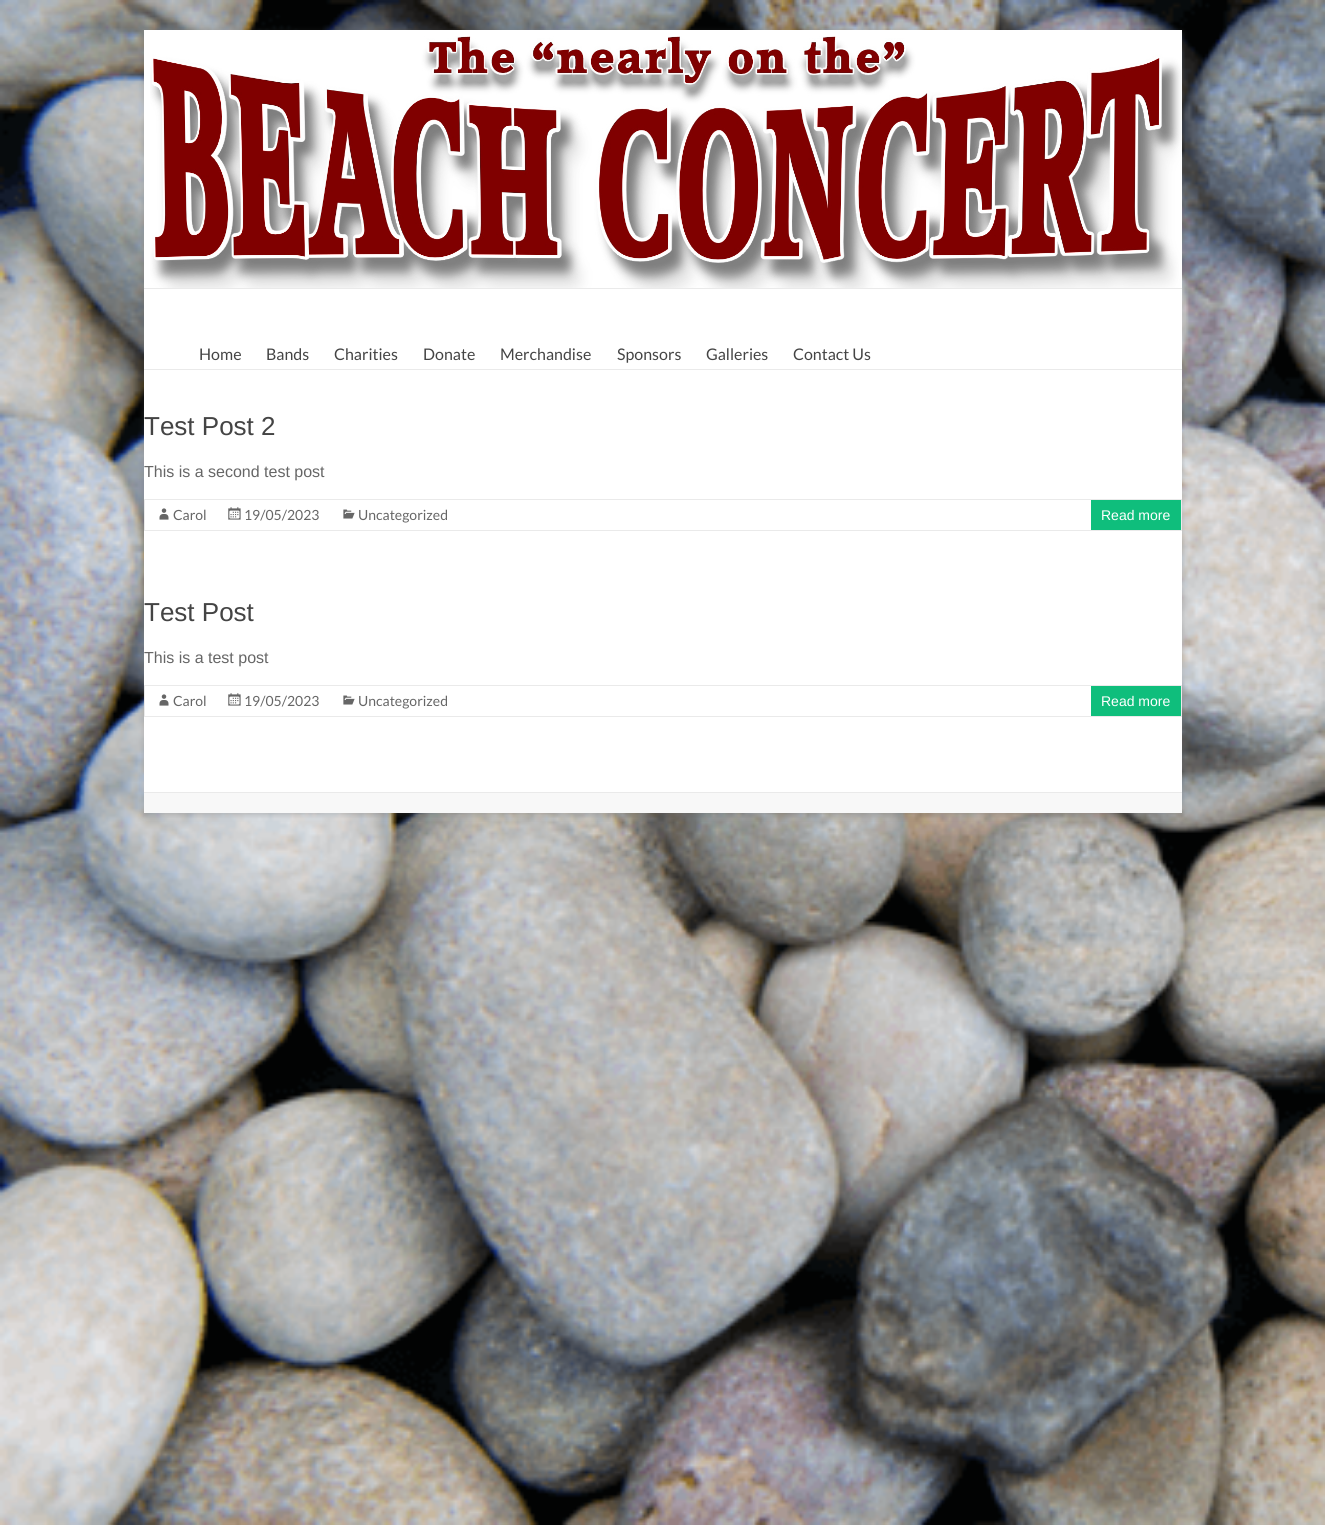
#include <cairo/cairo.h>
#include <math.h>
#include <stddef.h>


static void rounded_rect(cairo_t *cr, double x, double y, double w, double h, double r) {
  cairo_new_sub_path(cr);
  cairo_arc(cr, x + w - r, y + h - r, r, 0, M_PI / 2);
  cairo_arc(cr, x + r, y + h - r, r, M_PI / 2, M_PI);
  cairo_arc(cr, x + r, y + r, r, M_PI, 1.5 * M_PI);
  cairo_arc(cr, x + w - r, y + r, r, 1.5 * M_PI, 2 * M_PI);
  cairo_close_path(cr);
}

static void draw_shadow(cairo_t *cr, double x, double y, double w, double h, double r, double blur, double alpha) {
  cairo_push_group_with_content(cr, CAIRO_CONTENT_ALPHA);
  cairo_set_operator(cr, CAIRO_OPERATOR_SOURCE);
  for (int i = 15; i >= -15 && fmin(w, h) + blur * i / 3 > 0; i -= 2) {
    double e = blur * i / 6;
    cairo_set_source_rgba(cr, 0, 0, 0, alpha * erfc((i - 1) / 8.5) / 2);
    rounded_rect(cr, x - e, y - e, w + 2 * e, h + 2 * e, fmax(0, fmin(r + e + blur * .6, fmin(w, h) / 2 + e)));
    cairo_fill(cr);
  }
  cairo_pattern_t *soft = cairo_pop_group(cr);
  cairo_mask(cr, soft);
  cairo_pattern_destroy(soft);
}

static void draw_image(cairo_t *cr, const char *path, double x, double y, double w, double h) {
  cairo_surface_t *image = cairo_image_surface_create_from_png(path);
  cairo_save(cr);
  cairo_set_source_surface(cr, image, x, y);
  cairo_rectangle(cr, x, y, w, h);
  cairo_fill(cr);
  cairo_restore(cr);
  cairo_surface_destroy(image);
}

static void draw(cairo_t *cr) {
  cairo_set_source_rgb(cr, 1, 1, 1);
  cairo_paint(cr);
  draw_image(cr, "images/1.png", 0, 0, 1325, 1525);
  cairo_set_source_rgb(cr, 100 / 255.0, 100 / 255.0, 100 / 255.0);
  draw_shadow(cr, 144, 32, 1038, 783, 0, 3, 0.3);
  cairo_set_source_rgb(cr, 1, 1, 1);
  cairo_rectangle(cr, 144, 30, 1038, 762);
  cairo_fill(cr);
  draw_image(cr, "images/2.png", 150, 36, 1032, 252);
  cairo_set_source_rgb(cr, 234 / 255.0, 234 / 255.0, 234 / 255.0);
  cairo_rectangle(cr, 144, 288, 1038, 1);
  cairo_fill(cr);
  cairo_rectangle(cr, 144, 369, 1038, 1);
  cairo_fill(cr);
  cairo_rectangle(cr, 144.5, 499.5, 1037, 31);
  cairo_set_line_width(cr, 1);
  cairo_stroke(cr);
  draw_image(cr, "images/3.png", 159, 508, 10, 12);
  draw_image(cr, "images/4.png", 228, 507, 13, 13);
  draw_image(cr, "images/5.png", 343, 509, 12, 10);
  cairo_set_source_rgb(cr, 15 / 255.0, 190 / 255.0, 124 / 255.0);
  cairo_rectangle(cr, 1091, 500, 90, 30);
  cairo_fill(cr);
  cairo_rectangle(cr, 144.5, 685.5, 1037, 31);
  cairo_set_source_rgb(cr, 234 / 255.0, 234 / 255.0, 234 / 255.0);
  cairo_stroke(cr);
  draw_image(cr, "images/3.png", 159, 694, 10, 12);
  draw_image(cr, "images/4.png", 228, 693, 13, 13);
  draw_image(cr, "images/5.png", 343, 695, 12, 10);
  cairo_set_source_rgb(cr, 15 / 255.0, 190 / 255.0, 124 / 255.0);
  cairo_rectangle(cr, 1091, 686, 90, 30);
  cairo_fill(cr);
  cairo_set_source_rgb(cr, 248 / 255.0, 248 / 255.0, 248 / 255.0);
  cairo_rectangle(cr, 144, 793, 1038, 20);
  cairo_fill(cr);
  cairo_set_source_rgb(cr, 234 / 255.0, 234 / 255.0, 234 / 255.0);
  cairo_rectangle(cr, 144, 792, 1038, 1);
  cairo_fill(cr);
  cairo_select_font_face(cr, "Lato", CAIRO_FONT_SLANT_NORMAL, CAIRO_FONT_WEIGHT_NORMAL);
  cairo_set_font_size(cr, 16);
  cairo_set_source_rgb(cr, 68 / 255.0, 68 / 255.0, 68 / 255.0);
  cairo_move_to(cr, 199, 360);
  cairo_show_text(cr, "Home");
  cairo_move_to(cr, 266, 360);
  cairo_show_text(cr, "Bands");
  cairo_move_to(cr, 334, 360);
  cairo_show_text(cr, "Charities");
  cairo_move_to(cr, 423, 360);
  cairo_show_text(cr, "Donate");
  cairo_move_to(cr, 500, 360);
  cairo_show_text(cr, "Merchandise");
  cairo_move_to(cr, 617, 360);
  cairo_show_text(cr, "Sponsors");
  cairo_move_to(cr, 706, 360);
  cairo_show_text(cr, "Galleries");
  cairo_move_to(cr, 793, 360);
  cairo_show_text(cr, "Contact Us");
  cairo_select_font_face(cr, "Arimo", CAIRO_FONT_SLANT_NORMAL, CAIRO_FONT_WEIGHT_NORMAL);
  cairo_set_font_size(cr, 26);
  cairo_move_to(cr, 144, 435);
  cairo_show_text(cr, "Test Post 2");
  cairo_set_font_size(cr, 16);
  cairo_set_source_rgb(cr, 102 / 255.0, 102 / 255.0, 102 / 255.0);
  cairo_move_to(cr, 144, 477);
  cairo_show_text(cr, "This is a second test post");
  cairo_select_font_face(cr, "Lato", CAIRO_FONT_SLANT_NORMAL, CAIRO_FONT_WEIGHT_NORMAL);
  cairo_set_font_size(cr, 14);
  cairo_move_to(cr, 173, 520);
  cairo_show_text(cr, "Carol");
  cairo_move_to(cr, 244, 520);
  cairo_show_text(cr, "19/05/2023");
  cairo_move_to(cr, 358, 520);
  cairo_show_text(cr, "Uncategorized");
  cairo_select_font_face(cr, "Arimo", CAIRO_FONT_SLANT_NORMAL, CAIRO_FONT_WEIGHT_NORMAL);
  cairo_set_source_rgb(cr, 1, 1, 1);
  cairo_move_to(cr, 1101, 520);
  cairo_show_text(cr, "Read more");
  cairo_set_font_size(cr, 26);
  cairo_set_source_rgb(cr, 68 / 255.0, 68 / 255.0, 68 / 255.0);
  cairo_move_to(cr, 144, 621);
  cairo_show_text(cr, "Test Post");
  cairo_set_font_size(cr, 16);
  cairo_set_source_rgb(cr, 102 / 255.0, 102 / 255.0, 102 / 255.0);
  cairo_move_to(cr, 144, 663);
  cairo_show_text(cr, "This is a test post");
  cairo_select_font_face(cr, "Lato", CAIRO_FONT_SLANT_NORMAL, CAIRO_FONT_WEIGHT_NORMAL);
  cairo_set_font_size(cr, 14);
  cairo_move_to(cr, 173, 706);
  cairo_show_text(cr, "Carol");
  cairo_move_to(cr, 244, 706);
  cairo_show_text(cr, "19/05/2023");
  cairo_move_to(cr, 358, 706);
  cairo_show_text(cr, "Uncategorized");
  cairo_select_font_face(cr, "Arimo", CAIRO_FONT_SLANT_NORMAL, CAIRO_FONT_WEIGHT_NORMAL);
  cairo_set_source_rgb(cr, 1, 1, 1);
  cairo_move_to(cr, 1101, 706);
  cairo_show_text(cr, "Read more");
}

int main(void) {
  cairo_surface_t *surface = cairo_image_surface_create(CAIRO_FORMAT_RGB24, 1325, 1525);
  cairo_t *cr = cairo_create(surface);
  cairo_font_options_t *options = cairo_font_options_create();
  cairo_font_options_set_hint_metrics(options, CAIRO_HINT_METRICS_OFF);
  cairo_font_options_set_hint_style(options, CAIRO_HINT_STYLE_NONE);
  cairo_set_font_options(cr, options);
  cairo_set_miter_limit(cr, 4);
  draw(cr);
  cairo_surface_write_to_png(surface, "out.png");
  cairo_font_options_destroy(options);
  cairo_destroy(cr);
  cairo_surface_destroy(surface);
  return 0;
}
